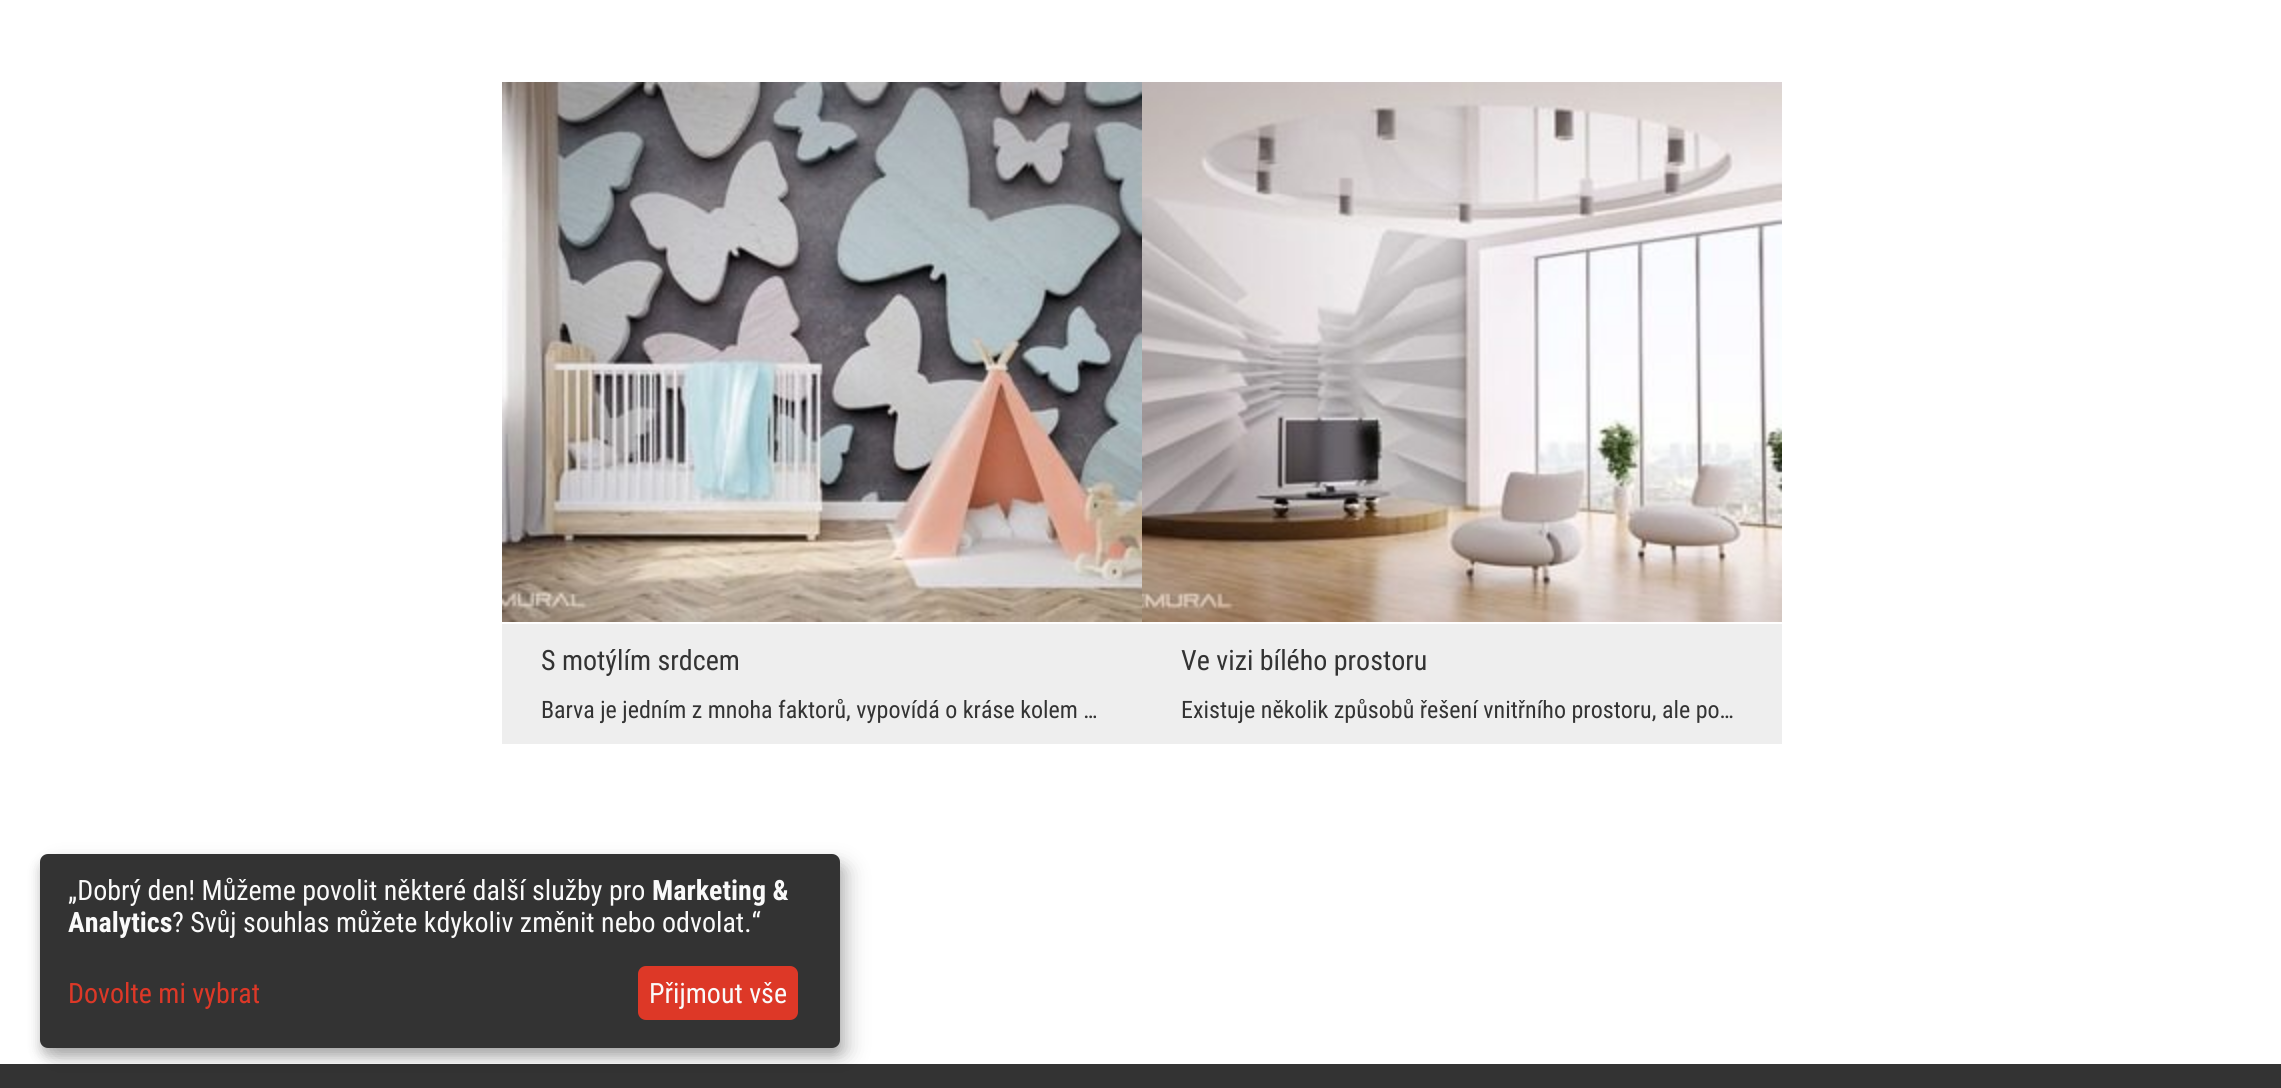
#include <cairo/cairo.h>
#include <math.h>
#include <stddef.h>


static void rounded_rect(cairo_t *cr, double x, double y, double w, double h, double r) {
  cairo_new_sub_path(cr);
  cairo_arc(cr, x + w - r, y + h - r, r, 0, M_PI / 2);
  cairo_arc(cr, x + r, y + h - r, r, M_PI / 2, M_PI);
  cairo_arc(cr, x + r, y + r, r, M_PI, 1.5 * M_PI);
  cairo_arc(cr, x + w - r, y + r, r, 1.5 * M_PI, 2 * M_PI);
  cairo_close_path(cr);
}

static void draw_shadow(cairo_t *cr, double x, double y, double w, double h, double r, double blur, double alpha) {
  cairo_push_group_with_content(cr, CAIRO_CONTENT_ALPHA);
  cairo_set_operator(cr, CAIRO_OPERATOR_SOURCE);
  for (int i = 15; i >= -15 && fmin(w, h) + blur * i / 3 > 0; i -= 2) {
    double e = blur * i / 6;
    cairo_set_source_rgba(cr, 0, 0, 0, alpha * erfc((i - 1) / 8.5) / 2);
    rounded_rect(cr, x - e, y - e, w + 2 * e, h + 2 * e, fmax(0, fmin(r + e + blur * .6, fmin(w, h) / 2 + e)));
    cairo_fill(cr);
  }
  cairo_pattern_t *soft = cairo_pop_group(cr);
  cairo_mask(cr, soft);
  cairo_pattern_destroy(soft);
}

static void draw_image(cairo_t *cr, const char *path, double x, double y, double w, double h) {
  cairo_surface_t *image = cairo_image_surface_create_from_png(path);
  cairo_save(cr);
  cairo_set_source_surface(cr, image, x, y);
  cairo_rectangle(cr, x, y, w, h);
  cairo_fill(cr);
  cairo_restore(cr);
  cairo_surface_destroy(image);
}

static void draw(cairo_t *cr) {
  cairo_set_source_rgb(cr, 1, 1, 1);
  cairo_paint(cr);
  draw_image(cr, "images/1.png", 502, 82, 640, 540);
  cairo_set_source_rgb(cr, 238 / 255.0, 238 / 255.0, 238 / 255.0);
  cairo_rectangle(cr, 502, 624, 640, 120);
  cairo_fill(cr);
  draw_image(cr, "images/2.png", 1142, 82, 640, 540);
  cairo_rectangle(cr, 1142, 624, 640, 120);
  cairo_fill(cr);
  cairo_set_source_rgb(cr, 51 / 255.0, 51 / 255.0, 51 / 255.0);
  cairo_rectangle(cr, 0, 1064, 2281, 24);
  cairo_fill(cr);
  cairo_set_source_rgb(cr, 0, 0, 0);
  draw_shadow(cr, 50, 864, 800, 194, 8, 10, 0.19);
  draw_shadow(cr, 40, 862, 800, 194, 8, 6, 0.2);
  cairo_set_source_rgb(cr, 51 / 255.0, 51 / 255.0, 51 / 255.0);
  rounded_rect(cr, 40, 854, 800, 194, 8);
  cairo_fill(cr);
  cairo_set_source_rgb(cr, 221 / 255.0, 56 / 255.0, 39 / 255.0);
  rounded_rect(cr, 638, 966, 160, 54, 8);
  cairo_fill(cr);
  cairo_select_font_face(cr, "Roboto Condensed", CAIRO_FONT_SLANT_NORMAL, CAIRO_FONT_WEIGHT_NORMAL);
  cairo_set_font_size(cr, 28);
  cairo_set_source_rgb(cr, 51 / 255.0, 51 / 255.0, 51 / 255.0);
  cairo_move_to(cr, 541, 670);
  cairo_show_text(cr, "S motýlím srdcem");
  cairo_set_font_size(cr, 24);
  cairo_move_to(cr, 541, 718);
  cairo_show_text(cr, "Barva je jedním z mnoha faktorů, vypovídá o kráse kolem …");
  cairo_set_font_size(cr, 28);
  cairo_move_to(cr, 1181, 670);
  cairo_show_text(cr, "Ve vizi bílého prostoru");
  cairo_set_font_size(cr, 24);
  cairo_move_to(cr, 1181, 718);
  cairo_show_text(cr, "Existuje několik způsobů řešení vnitřního prostoru, ale po…");
  cairo_set_font_size(cr, 28);
  cairo_set_source_rgb(cr, 250 / 255.0, 250 / 255.0, 250 / 255.0);
  cairo_move_to(cr, 68, 900);
  cairo_show_text(cr, "„Dobrý den! Můžeme povolit některé další služby pro");
  cairo_select_font_face(cr, "Roboto Condensed", CAIRO_FONT_SLANT_NORMAL, CAIRO_FONT_WEIGHT_BOLD);
  cairo_move_to(cr, 652, 900);
  cairo_show_text(cr, "Marketing &");
  cairo_move_to(cr, 68, 932);
  cairo_show_text(cr, "Analytics");
  cairo_select_font_face(cr, "Roboto Condensed", CAIRO_FONT_SLANT_NORMAL, CAIRO_FONT_WEIGHT_NORMAL);
  cairo_move_to(cr, 172, 932);
  cairo_show_text(cr, "? Svůj souhlas můžete kdykoliv změnit nebo odvolat.“");
  cairo_set_source_rgb(cr, 221 / 255.0, 56 / 255.0, 39 / 255.0);
  cairo_move_to(cr, 68, 1003);
  cairo_show_text(cr, "Dovolte mi vybrat");
  cairo_set_source_rgb(cr, 250 / 255.0, 250 / 255.0, 250 / 255.0);
  cairo_move_to(cr, 649, 1003);
  cairo_show_text(cr, "Přijmout vše");
}

int main(void) {
  cairo_surface_t *surface = cairo_image_surface_create(CAIRO_FORMAT_RGB24, 2281, 1088);
  cairo_t *cr = cairo_create(surface);
  cairo_font_options_t *options = cairo_font_options_create();
  cairo_font_options_set_hint_metrics(options, CAIRO_HINT_METRICS_OFF);
  cairo_font_options_set_hint_style(options, CAIRO_HINT_STYLE_NONE);
  cairo_set_font_options(cr, options);
  cairo_set_miter_limit(cr, 4);
  draw(cr);
  cairo_surface_write_to_png(surface, "out.png");
  cairo_font_options_destroy(options);
  cairo_destroy(cr);
  cairo_surface_destroy(surface);
  return 0;
}
